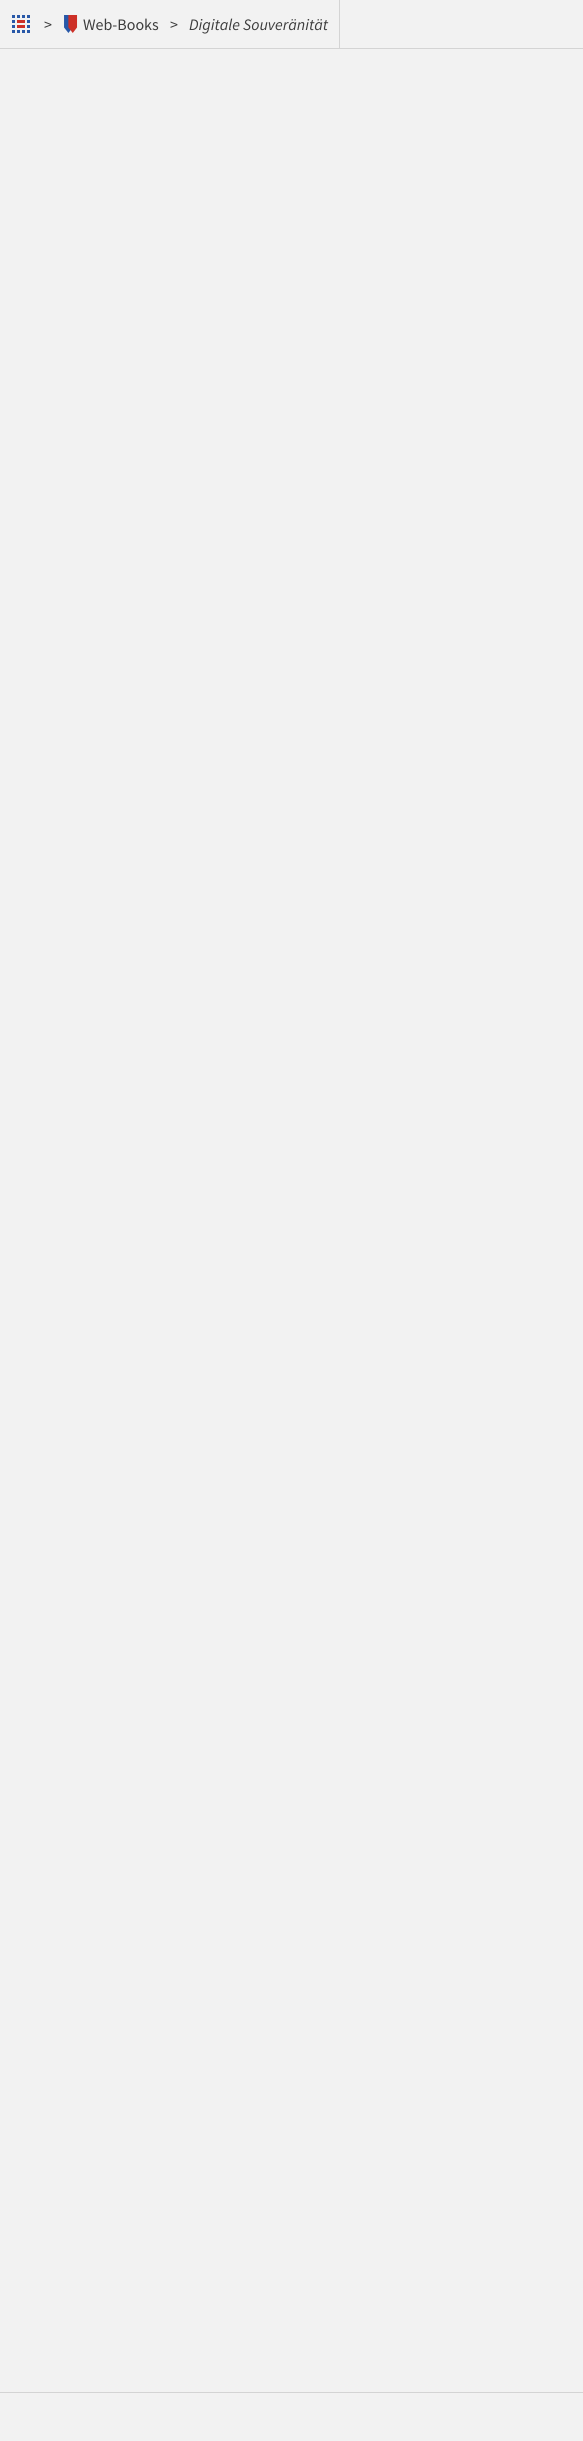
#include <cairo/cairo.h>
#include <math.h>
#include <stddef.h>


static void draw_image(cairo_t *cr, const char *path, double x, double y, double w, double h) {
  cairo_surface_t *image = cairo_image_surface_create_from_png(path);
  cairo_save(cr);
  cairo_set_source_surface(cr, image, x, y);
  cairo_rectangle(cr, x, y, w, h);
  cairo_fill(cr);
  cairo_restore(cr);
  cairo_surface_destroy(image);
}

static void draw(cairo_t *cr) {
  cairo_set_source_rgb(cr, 242 / 255.0, 242 / 255.0, 242 / 255.0);
  cairo_paint(cr);
  cairo_set_source_rgb(cr, 212 / 255.0, 212 / 255.0, 212 / 255.0);
  cairo_rectangle(cr, 0, 48, 583, 1);
  cairo_fill(cr);
  cairo_rectangle(cr, 339, 0, 1, 48);
  cairo_fill(cr);
  draw_image(cr, "images/1.png", 12, 15, 18, 18);
  draw_image(cr, "images/2.png", 64, 15, 14, 18);
  cairo_rectangle(cr, 0, 2392, 583, 1);
  cairo_fill(cr);
  cairo_select_font_face(cr, "Source Sans Pro", CAIRO_FONT_SLANT_NORMAL, CAIRO_FONT_WEIGHT_NORMAL);
  cairo_set_font_size(cr, 16);
  cairo_set_source_rgb(cr, 61 / 255.0, 61 / 255.0, 61 / 255.0);
  cairo_move_to(cr, 44, 30);
  cairo_show_text(cr, ">");
  cairo_move_to(cr, 83, 30);
  cairo_show_text(cr, "Web-Books");
  cairo_move_to(cr, 170, 30);
  cairo_show_text(cr, ">");
  cairo_select_font_face(cr, "Source Sans Pro", CAIRO_FONT_SLANT_ITALIC, CAIRO_FONT_WEIGHT_NORMAL);
  cairo_move_to(cr, 189, 30);
  cairo_show_text(cr, "Digitale Souveränität");
}

int main(void) {
  cairo_surface_t *surface = cairo_image_surface_create(CAIRO_FORMAT_RGB24, 583, 2441);
  cairo_t *cr = cairo_create(surface);
  cairo_font_options_t *options = cairo_font_options_create();
  cairo_font_options_set_hint_metrics(options, CAIRO_HINT_METRICS_OFF);
  cairo_font_options_set_hint_style(options, CAIRO_HINT_STYLE_NONE);
  cairo_set_font_options(cr, options);
  cairo_set_miter_limit(cr, 4);
  draw(cr);
  cairo_surface_write_to_png(surface, "out.png");
  cairo_font_options_destroy(options);
  cairo_destroy(cr);
  cairo_surface_destroy(surface);
  return 0;
}
